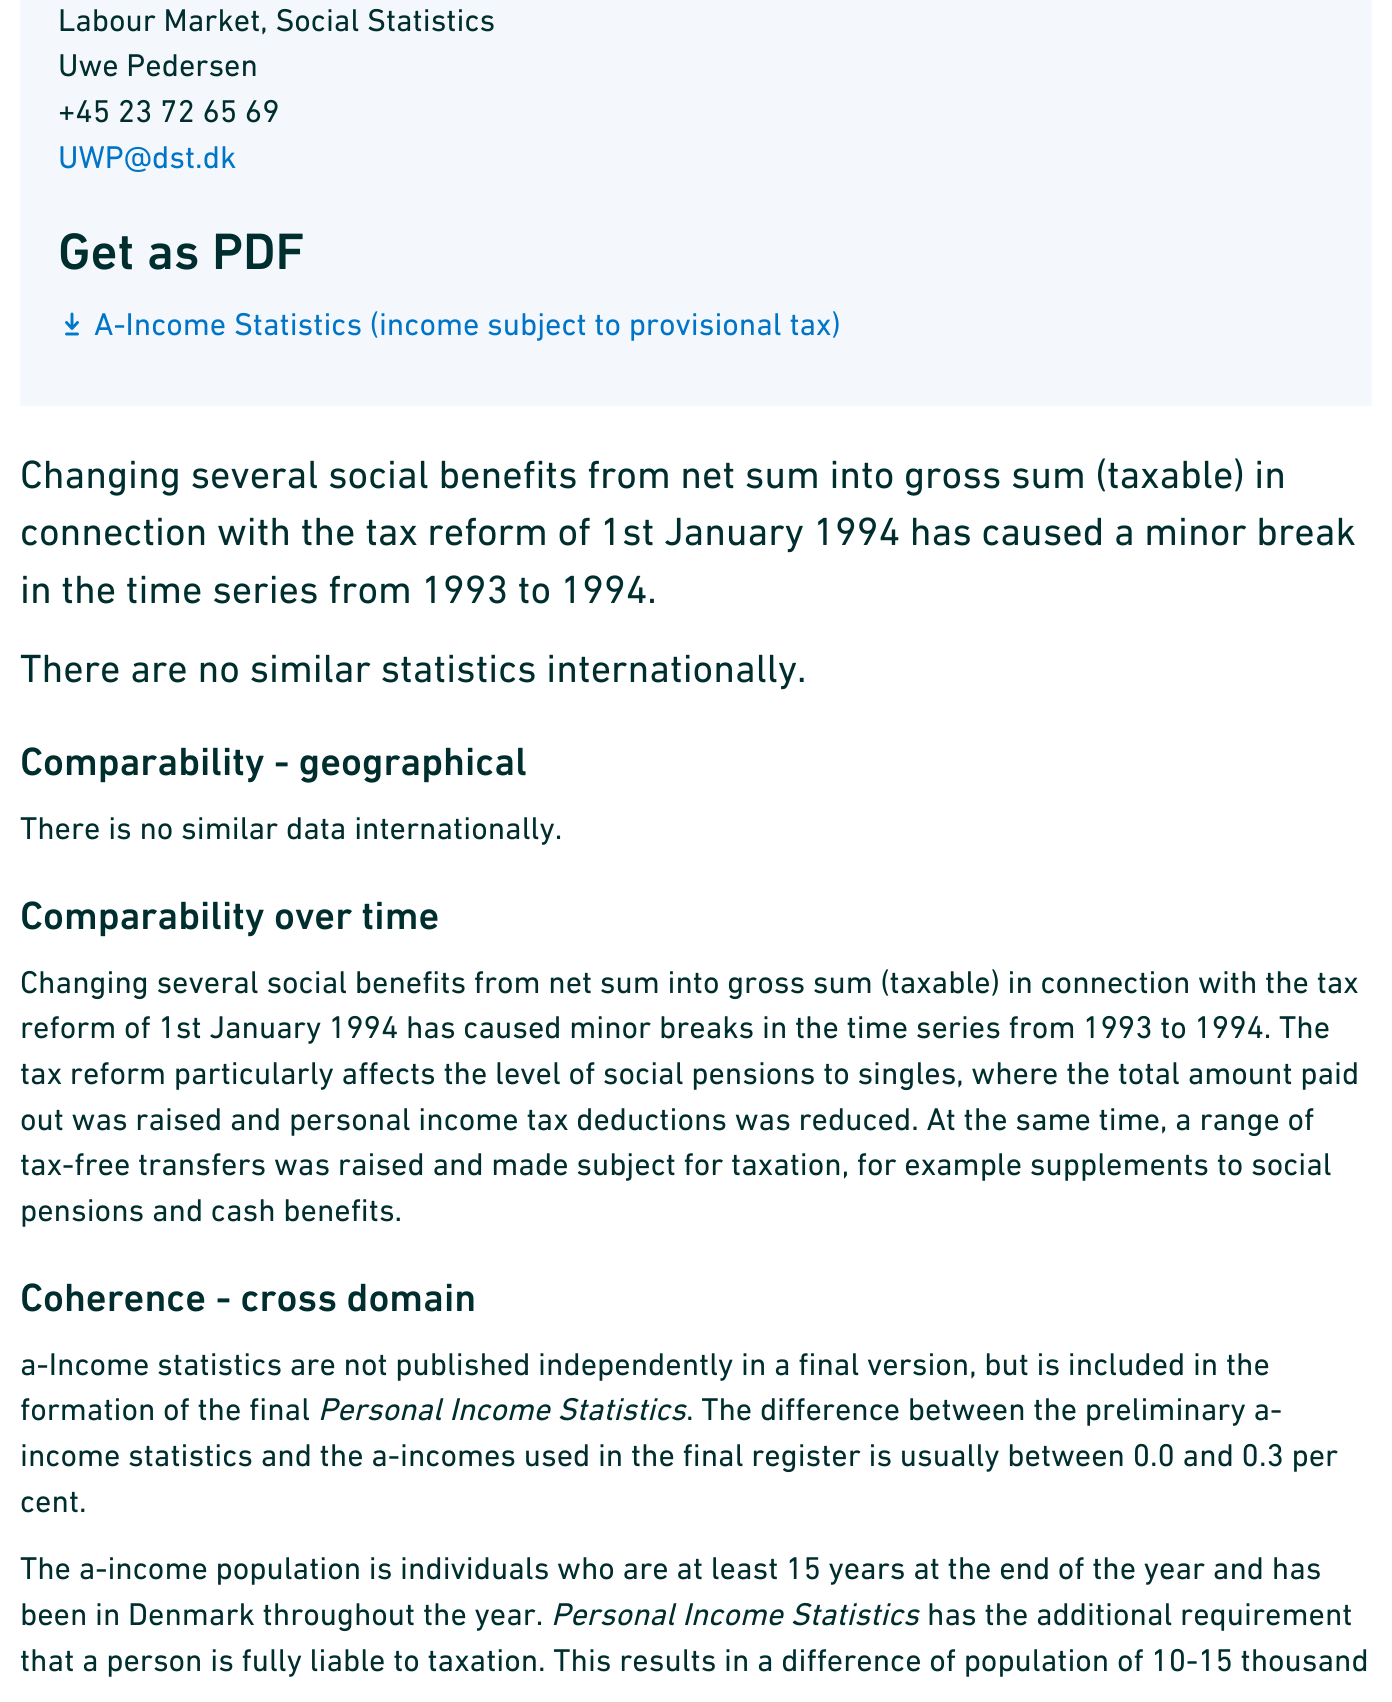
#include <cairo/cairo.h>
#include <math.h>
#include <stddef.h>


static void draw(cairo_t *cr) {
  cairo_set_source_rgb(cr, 1, 1, 1);
  cairo_paint(cr);
  cairo_set_source_rgb(cr, 244 / 255.0, 247 / 255.0, 252 / 255.0);
  cairo_rectangle(cr, 20, 0, 1352, 406);
  cairo_fill(cr);
  cairo_new_path(cr);
  cairo_move_to(cr, 72, 328.5);
  cairo_line_to(cr, 72, 314);
  cairo_move_to(cr, 77.5, 322.5);
  cairo_line_to(cr, 72, 328.5);
  cairo_line_to(cr, 66.5, 322.5);
  cairo_move_to(cr, 77.5, 334);
  cairo_line_to(cr, 66.5, 334);
  cairo_set_source_rgb(cr, 0, 121 / 255.0, 202 / 255.0);
  cairo_set_line_width(cr, 2.9);
  cairo_set_line_cap(cr, CAIRO_LINE_CAP_ROUND);
  cairo_set_line_join(cr, CAIRO_LINE_JOIN_ROUND);
  cairo_stroke(cr);
  cairo_select_font_face(cr, "DIN Next", CAIRO_FONT_SLANT_NORMAL, CAIRO_FONT_WEIGHT_NORMAL);
  cairo_set_font_size(cr, 32);
  cairo_set_source_rgb(cr, 0, 46 / 255.0, 46 / 255.0);
  cairo_move_to(cr, 58, 31);
  cairo_show_text(cr, "Labour Market, Social Statistics");
  cairo_move_to(cr, 58, 76);
  cairo_show_text(cr, "Uwe Pedersen");
  cairo_move_to(cr, 58, 122);
  cairo_show_text(cr, "+45 23 72 65 69");
  cairo_set_source_rgb(cr, 0, 116 / 255.0, 198 / 255.0);
  cairo_move_to(cr, 58, 168);
  cairo_show_text(cr, "UWP@dst.dk");
  cairo_select_font_face(cr, "DIN Next Medium", CAIRO_FONT_SLANT_NORMAL, CAIRO_FONT_WEIGHT_NORMAL);
  cairo_set_font_size(cr, 52);
  cairo_set_source_rgb(cr, 0, 46 / 255.0, 46 / 255.0);
  cairo_move_to(cr, 58, 269);
  cairo_show_text(cr, "Get as PDF");
  cairo_select_font_face(cr, "DIN Next", CAIRO_FONT_SLANT_NORMAL, CAIRO_FONT_WEIGHT_NORMAL);
  cairo_set_font_size(cr, 32);
  cairo_set_source_rgb(cr, 0, 116 / 255.0, 198 / 255.0);
  cairo_move_to(cr, 94, 335);
  cairo_show_text(cr, "A-Income Statistics (income subject to provisional tax)");
  cairo_set_font_size(cr, 40);
  cairo_set_source_rgb(cr, 0, 46 / 255.0, 46 / 255.0);
  cairo_move_to(cr, 20, 488);
  cairo_show_text(cr, "Changing several social benefits from net sum into gross sum (taxable) in");
  cairo_move_to(cr, 20, 545);
  cairo_show_text(cr, "connection with the tax reform of 1st January 1994 has caused a minor break");
  cairo_move_to(cr, 20, 603);
  cairo_show_text(cr, "in the time series from 1993 to 1994.");
  cairo_move_to(cr, 20, 682);
  cairo_show_text(cr, "There are no similar statistics internationally.");
  cairo_select_font_face(cr, "DIN Next Medium", CAIRO_FONT_SLANT_NORMAL, CAIRO_FONT_WEIGHT_NORMAL);
  cairo_move_to(cr, 20, 775);
  cairo_show_text(cr, "Comparability - geographical");
  cairo_select_font_face(cr, "DIN Next", CAIRO_FONT_SLANT_NORMAL, CAIRO_FONT_WEIGHT_NORMAL);
  cairo_set_font_size(cr, 32);
  cairo_move_to(cr, 20, 839);
  cairo_show_text(cr, "There is no similar data internationally.");
  cairo_select_font_face(cr, "DIN Next Medium", CAIRO_FONT_SLANT_NORMAL, CAIRO_FONT_WEIGHT_NORMAL);
  cairo_set_font_size(cr, 40);
  cairo_move_to(cr, 20, 929);
  cairo_show_text(cr, "Comparability over time");
  cairo_select_font_face(cr, "DIN Next", CAIRO_FONT_SLANT_NORMAL, CAIRO_FONT_WEIGHT_NORMAL);
  cairo_set_font_size(cr, 32);
  cairo_move_to(cr, 20, 993);
  cairo_show_text(cr, "Changing several social benefits from net sum into gross sum (taxable) in connection with the tax");
  cairo_move_to(cr, 20, 1038);
  cairo_show_text(cr, "reform of 1st January 1994 has caused minor breaks in the time series from 1993 to 1994. The");
  cairo_move_to(cr, 20, 1084);
  cairo_show_text(cr, "tax reform particularly affects the level of social pensions to singles, where the total amount paid");
  cairo_move_to(cr, 20, 1130);
  cairo_show_text(cr, "out was raised and personal income tax deductions was reduced. At the same time, a range of");
  cairo_move_to(cr, 20, 1175);
  cairo_show_text(cr, "tax-free transfers was raised and made subject for taxation, for example supplements to social");
  cairo_move_to(cr, 20, 1221);
  cairo_show_text(cr, "pensions and cash benefits.");
  cairo_select_font_face(cr, "DIN Next Medium", CAIRO_FONT_SLANT_NORMAL, CAIRO_FONT_WEIGHT_NORMAL);
  cairo_set_font_size(cr, 40);
  cairo_move_to(cr, 20, 1311);
  cairo_show_text(cr, "Coherence - cross domain");
  cairo_select_font_face(cr, "DIN Next", CAIRO_FONT_SLANT_NORMAL, CAIRO_FONT_WEIGHT_NORMAL);
  cairo_set_font_size(cr, 32);
  cairo_move_to(cr, 20, 1375);
  cairo_show_text(cr, "a-Income statistics are not published independently in a final version, but is included in the");
  cairo_move_to(cr, 20, 1420);
  cairo_show_text(cr, "formation of the final");
  cairo_select_font_face(cr, "DIN Next", CAIRO_FONT_SLANT_ITALIC, CAIRO_FONT_WEIGHT_NORMAL);
  cairo_move_to(cr, 318, 1420);
  cairo_show_text(cr, "Personal Income Statistics");
  cairo_select_font_face(cr, "DIN Next", CAIRO_FONT_SLANT_NORMAL, CAIRO_FONT_WEIGHT_NORMAL);
  cairo_move_to(cr, 686, 1420);
  cairo_show_text(cr, ". The difference between the preliminary a-");
  cairo_move_to(cr, 20, 1466);
  cairo_show_text(cr, "income statistics and the a-incomes used in the final register is usually between 0.0 and 0.3 per");
  cairo_move_to(cr, 20, 1512);
  cairo_show_text(cr, "cent.");
  cairo_move_to(cr, 20, 1579);
  cairo_show_text(cr, "The a-income population is individuals who are at least 15 years at the end of the year and has");
  cairo_move_to(cr, 20, 1625);
  cairo_show_text(cr, "been in Denmark throughout the year.");
  cairo_select_font_face(cr, "DIN Next", CAIRO_FONT_SLANT_ITALIC, CAIRO_FONT_WEIGHT_NORMAL);
  cairo_move_to(cr, 551, 1625);
  cairo_show_text(cr, "Personal Income Statistics");
  cairo_select_font_face(cr, "DIN Next", CAIRO_FONT_SLANT_NORMAL, CAIRO_FONT_WEIGHT_NORMAL);
  cairo_move_to(cr, 927, 1625);
  cairo_show_text(cr, "has the additional requirement");
  cairo_move_to(cr, 20, 1671);
  cairo_show_text(cr, "that a person is fully liable to taxation. This results in a difference of population of 10-15 thousand");
}

int main(void) {
  cairo_surface_t *surface = cairo_image_surface_create(CAIRO_FORMAT_RGB24, 1392, 1702);
  cairo_t *cr = cairo_create(surface);
  cairo_font_options_t *options = cairo_font_options_create();
  cairo_font_options_set_hint_metrics(options, CAIRO_HINT_METRICS_OFF);
  cairo_font_options_set_hint_style(options, CAIRO_HINT_STYLE_NONE);
  cairo_set_font_options(cr, options);
  cairo_set_miter_limit(cr, 4);
  draw(cr);
  cairo_surface_write_to_png(surface, "out.png");
  cairo_font_options_destroy(options);
  cairo_destroy(cr);
  cairo_surface_destroy(surface);
  return 0;
}
